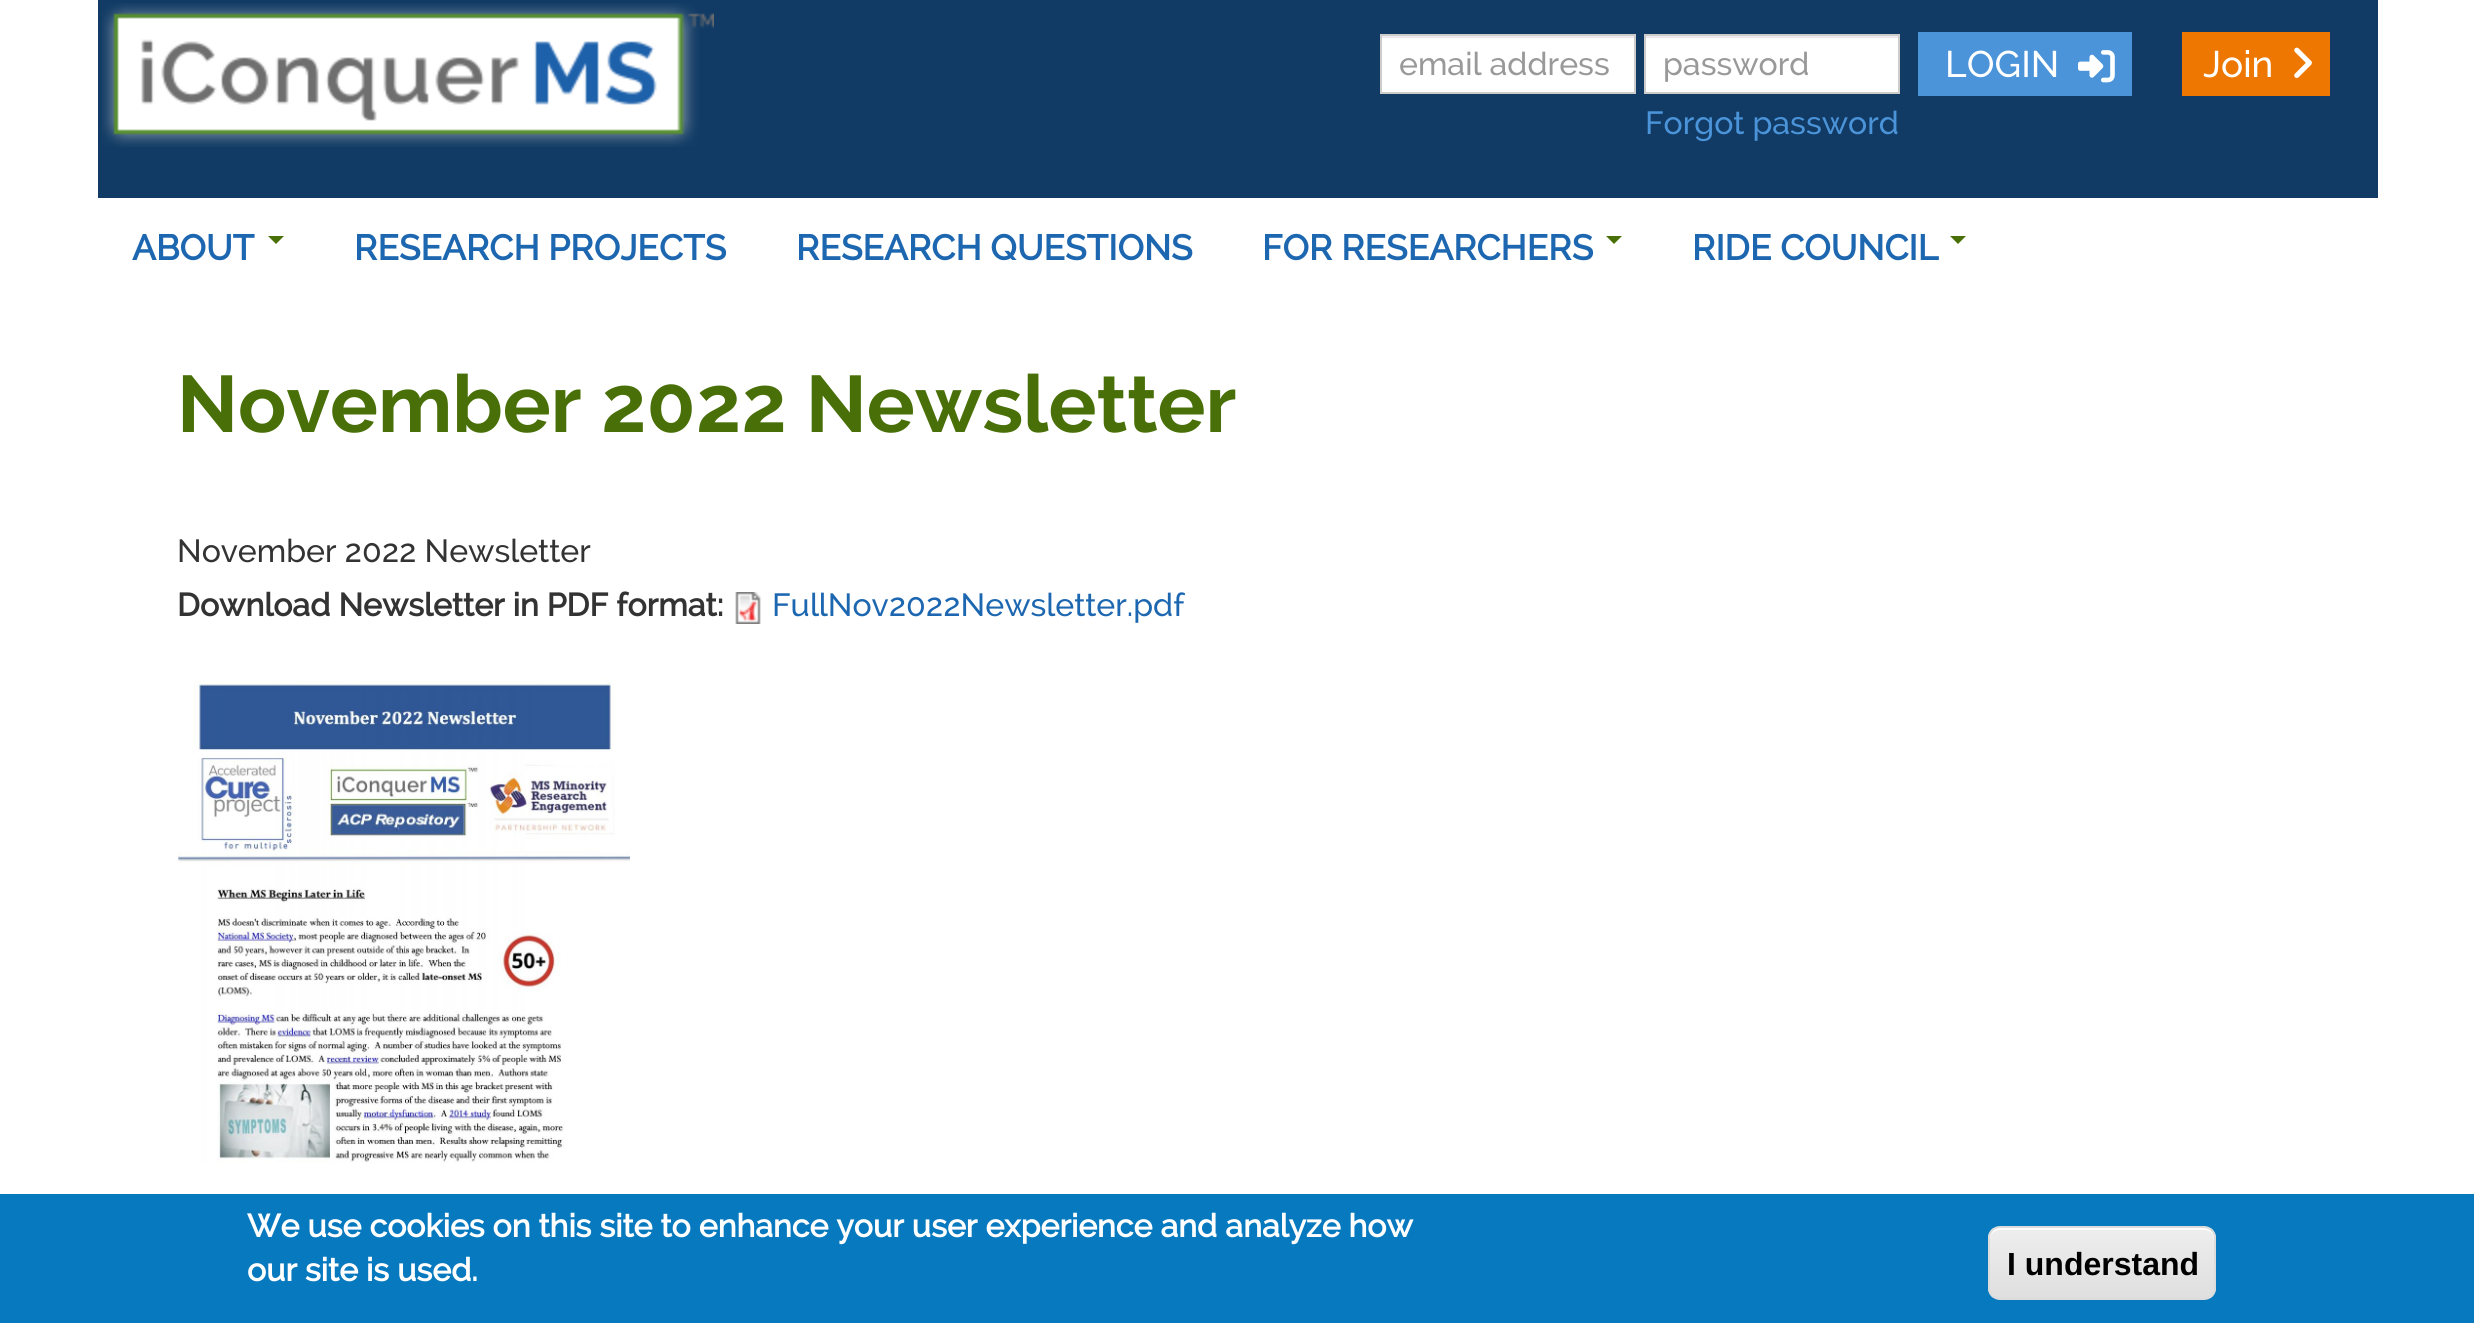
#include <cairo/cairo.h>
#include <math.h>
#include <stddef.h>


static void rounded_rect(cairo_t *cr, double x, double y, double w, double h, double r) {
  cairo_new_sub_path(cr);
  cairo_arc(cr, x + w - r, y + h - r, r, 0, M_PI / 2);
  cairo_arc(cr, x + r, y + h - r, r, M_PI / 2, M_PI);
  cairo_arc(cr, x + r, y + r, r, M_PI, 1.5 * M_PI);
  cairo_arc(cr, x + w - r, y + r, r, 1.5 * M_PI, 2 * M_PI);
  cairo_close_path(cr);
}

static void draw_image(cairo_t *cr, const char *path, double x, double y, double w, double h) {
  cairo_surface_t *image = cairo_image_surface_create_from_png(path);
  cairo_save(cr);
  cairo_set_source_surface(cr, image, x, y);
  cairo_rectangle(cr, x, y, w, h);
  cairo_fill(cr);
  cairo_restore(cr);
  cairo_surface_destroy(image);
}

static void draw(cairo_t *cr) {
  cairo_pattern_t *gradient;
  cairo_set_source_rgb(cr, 1, 1, 1);
  cairo_paint(cr);
  cairo_set_source_rgb(cr, 17 / 255.0, 59 / 255.0, 101 / 255.0);
  cairo_rectangle(cr, 98, 0, 2280, 198);
  cairo_fill(cr);
  draw_image(cr, "images/1.png", 101, 3, 613, 144);
  cairo_set_source_rgb(cr, 1, 1, 1);
  cairo_rectangle(cr, 1382, 38, 252, 54);
  cairo_fill(cr);
  cairo_set_source_rgb(cr, 236 / 255.0, 236 / 255.0, 236 / 255.0);
  cairo_rectangle(cr, 1382, 36, 252, 2);
  cairo_fill(cr);
  cairo_rectangle(cr, 1381, 35, 254, 58);
  cairo_set_source_rgb(cr, 204 / 255.0, 204 / 255.0, 204 / 255.0);
  cairo_stroke(cr);
  cairo_set_source_rgb(cr, 1, 1, 1);
  cairo_rectangle(cr, 1646, 38, 252, 54);
  cairo_fill(cr);
  cairo_set_source_rgb(cr, 236 / 255.0, 236 / 255.0, 236 / 255.0);
  cairo_rectangle(cr, 1646, 36, 252, 2);
  cairo_fill(cr);
  cairo_rectangle(cr, 1645, 35, 254, 58);
  cairo_set_source_rgb(cr, 204 / 255.0, 204 / 255.0, 204 / 255.0);
  cairo_stroke(cr);
  cairo_set_source_rgb(cr, 75 / 255.0, 148 / 255.0, 218 / 255.0);
  cairo_rectangle(cr, 1918, 32, 214, 64);
  cairo_fill(cr);
  draw_image(cr, "images/2.png", 2078, 50, 37, 33);
  cairo_set_source_rgb(cr, 237 / 255.0, 119 / 255.0, 0);
  cairo_rectangle(cr, 2182, 32, 148, 64);
  cairo_fill(cr);
  draw_image(cr, "images/3.png", 2294, 47, 18, 31);
  cairo_set_source_rgb(cr, 73 / 255.0, 112 / 255.0, 8 / 255.0);
  cairo_new_path(cr);
  cairo_move_to(cr, 268, 236);
  cairo_line_to(cr, 284, 236);
  cairo_line_to(cr, 276, 244);
  cairo_close_path(cr);
  cairo_fill(cr);
  cairo_new_path(cr);
  cairo_move_to(cr, 1606, 236);
  cairo_line_to(cr, 1622, 236);
  cairo_line_to(cr, 1614, 244);
  cairo_close_path(cr);
  cairo_fill(cr);
  cairo_new_path(cr);
  cairo_move_to(cr, 1950, 236);
  cairo_line_to(cr, 1966, 236);
  cairo_line_to(cr, 1958, 244);
  cairo_close_path(cr);
  cairo_fill(cr);
  draw_image(cr, "images/4.png", 735, 592, 26, 32);
  draw_image(cr, "images/5.png", 178, 679, 452, 484);
  cairo_set_source_rgb(cr, 7 / 255.0, 121 / 255.0, 191 / 255.0);
  cairo_rectangle(cr, 0, 1194, 2474, 129);
  cairo_fill(cr);
  cairo_save(cr);
  rounded_rect(cr, 1988, 1226, 228, 74, 12);
  cairo_clip(cr);
  gradient = cairo_pattern_create_linear(2102, 1228, 2102, 1298);
  cairo_pattern_add_color_stop_rgba(gradient, 0.05, 237 / 255.0, 237 / 255.0, 237 / 255.0, 1);
  cairo_pattern_add_color_stop_rgba(gradient, 1, 223 / 255.0, 223 / 255.0, 223 / 255.0, 1);
  cairo_set_source(cr, gradient);
  cairo_pattern_destroy(gradient);
  cairo_rectangle(cr, 1988, 1228, 228, 70);
  cairo_fill(cr);
  cairo_restore(cr);
  cairo_set_source_rgb(cr, 1, 1, 1);
  cairo_new_path(cr);
  cairo_move_to(cr, 2000, 1230);
  cairo_line_to(cr, 2204, 1230);
  cairo_curve_to(cr, 2210, 1230, 2214, 1234, 2214, 1240);
  cairo_line_to(cr, 2214, 1238);
  cairo_curve_to(cr, 2214, 1232, 2210, 1228, 2204, 1228);
  cairo_line_to(cr, 2000, 1228);
  cairo_curve_to(cr, 1994, 1228, 1990, 1232, 1990, 1238);
  cairo_line_to(cr, 1990, 1240);
  cairo_curve_to(cr, 1990, 1234, 1994, 1230, 2000, 1230);
  cairo_close_path(cr);
  cairo_fill(cr);
  rounded_rect(cr, 1989, 1227, 226, 72, 11);
  cairo_set_source_rgb(cr, 220 / 255.0, 220 / 255.0, 220 / 255.0);
  cairo_stroke(cr);
  cairo_select_font_face(cr, "Raleway Medium", CAIRO_FONT_SLANT_NORMAL, CAIRO_FONT_WEIGHT_NORMAL);
  cairo_set_font_size(cr, 32);
  cairo_set_source_rgb(cr, 153 / 255.0, 153 / 255.0, 153 / 255.0);
  cairo_move_to(cr, 1399, 75);
  cairo_show_text(cr, "email address");
  cairo_move_to(cr, 1663, 75);
  cairo_show_text(cr, "password");
  cairo_set_font_size(cr, 37);
  cairo_set_source_rgb(cr, 1, 1, 1);
  cairo_move_to(cr, 1945, 77);
  cairo_show_text(cr, "LOGIN");
  cairo_set_font_size(cr, 32);
  cairo_set_source_rgb(cr, 75 / 255.0, 148 / 255.0, 218 / 255.0);
  cairo_move_to(cr, 1645, 134);
  cairo_show_text(cr, "Forgot password");
  cairo_set_font_size(cr, 37);
  cairo_set_source_rgb(cr, 1, 1, 1);
  cairo_move_to(cr, 2203, 77);
  cairo_show_text(cr, "Join");
  cairo_select_font_face(cr, "Raleway", CAIRO_FONT_SLANT_NORMAL, CAIRO_FONT_WEIGHT_BOLD);
  cairo_set_font_size(cr, 35.25);
  cairo_set_source_rgb(cr, 29 / 255.0, 103 / 255.0, 177 / 255.0);
  cairo_move_to(cr, 132, 260);
  cairo_show_text(cr, "ABOUT");
  cairo_move_to(cr, 354, 260);
  cairo_show_text(cr, "RESEARCH PROJECTS");
  cairo_move_to(cr, 796, 260);
  cairo_show_text(cr, "RESEARCH QUESTIONS");
  cairo_move_to(cr, 1262, 260);
  cairo_show_text(cr, "FOR RESEARCHERS");
  cairo_move_to(cr, 1692, 260);
  cairo_show_text(cr, "RIDE COUNCIL");
  cairo_select_font_face(cr, "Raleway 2", CAIRO_FONT_SLANT_NORMAL, CAIRO_FONT_WEIGHT_BOLD);
  cairo_set_font_size(cr, 80);
  cairo_set_source_rgb(cr, 73 / 255.0, 112 / 255.0, 8 / 255.0);
  cairo_move_to(cr, 177, 432);
  cairo_show_text(cr, "November 2022 Newsletter");
  cairo_select_font_face(cr, "Raleway Medium", CAIRO_FONT_SLANT_NORMAL, CAIRO_FONT_WEIGHT_NORMAL);
  cairo_set_font_size(cr, 32);
  cairo_set_source_rgb(cr, 51 / 255.0, 51 / 255.0, 51 / 255.0);
  cairo_move_to(cr, 177, 562);
  cairo_show_text(cr, "November 2022 Newsletter");
  cairo_select_font_face(cr, "Raleway", CAIRO_FONT_SLANT_NORMAL, CAIRO_FONT_WEIGHT_BOLD);
  cairo_move_to(cr, 177, 616);
  cairo_show_text(cr, "Download Newsletter in PDF format:");
  cairo_select_font_face(cr, "Raleway Medium", CAIRO_FONT_SLANT_NORMAL, CAIRO_FONT_WEIGHT_NORMAL);
  cairo_set_source_rgb(cr, 29 / 255.0, 103 / 255.0, 177 / 255.0);
  cairo_move_to(cr, 772, 616);
  cairo_show_text(cr, "FullNov2022Newsletter.pdf");
  cairo_select_font_face(cr, "Raleway", CAIRO_FONT_SLANT_NORMAL, CAIRO_FONT_WEIGHT_BOLD);
  cairo_set_source_rgb(cr, 1, 1, 1);
  cairo_move_to(cr, 247, 1237);
  cairo_show_text(cr, "We use cookies on this site to enhance your user experience and analyze how");
  cairo_move_to(cr, 247, 1281);
  cairo_show_text(cr, "our site is used.");
  cairo_select_font_face(cr, "Liberation Sans", CAIRO_FONT_SLANT_NORMAL, CAIRO_FONT_WEIGHT_BOLD);
  cairo_set_source_rgb(cr, 0, 0, 0);
  cairo_move_to(cr, 2007, 1275);
  cairo_show_text(cr, "I understand");
}

int main(void) {
  cairo_surface_t *surface = cairo_image_surface_create(CAIRO_FORMAT_RGB24, 2474, 1323);
  cairo_t *cr = cairo_create(surface);
  cairo_font_options_t *options = cairo_font_options_create();
  cairo_font_options_set_hint_metrics(options, CAIRO_HINT_METRICS_OFF);
  cairo_font_options_set_hint_style(options, CAIRO_HINT_STYLE_NONE);
  cairo_set_font_options(cr, options);
  cairo_set_miter_limit(cr, 4);
  draw(cr);
  cairo_surface_write_to_png(surface, "out.png");
  cairo_font_options_destroy(options);
  cairo_destroy(cr);
  cairo_surface_destroy(surface);
  return 0;
}
